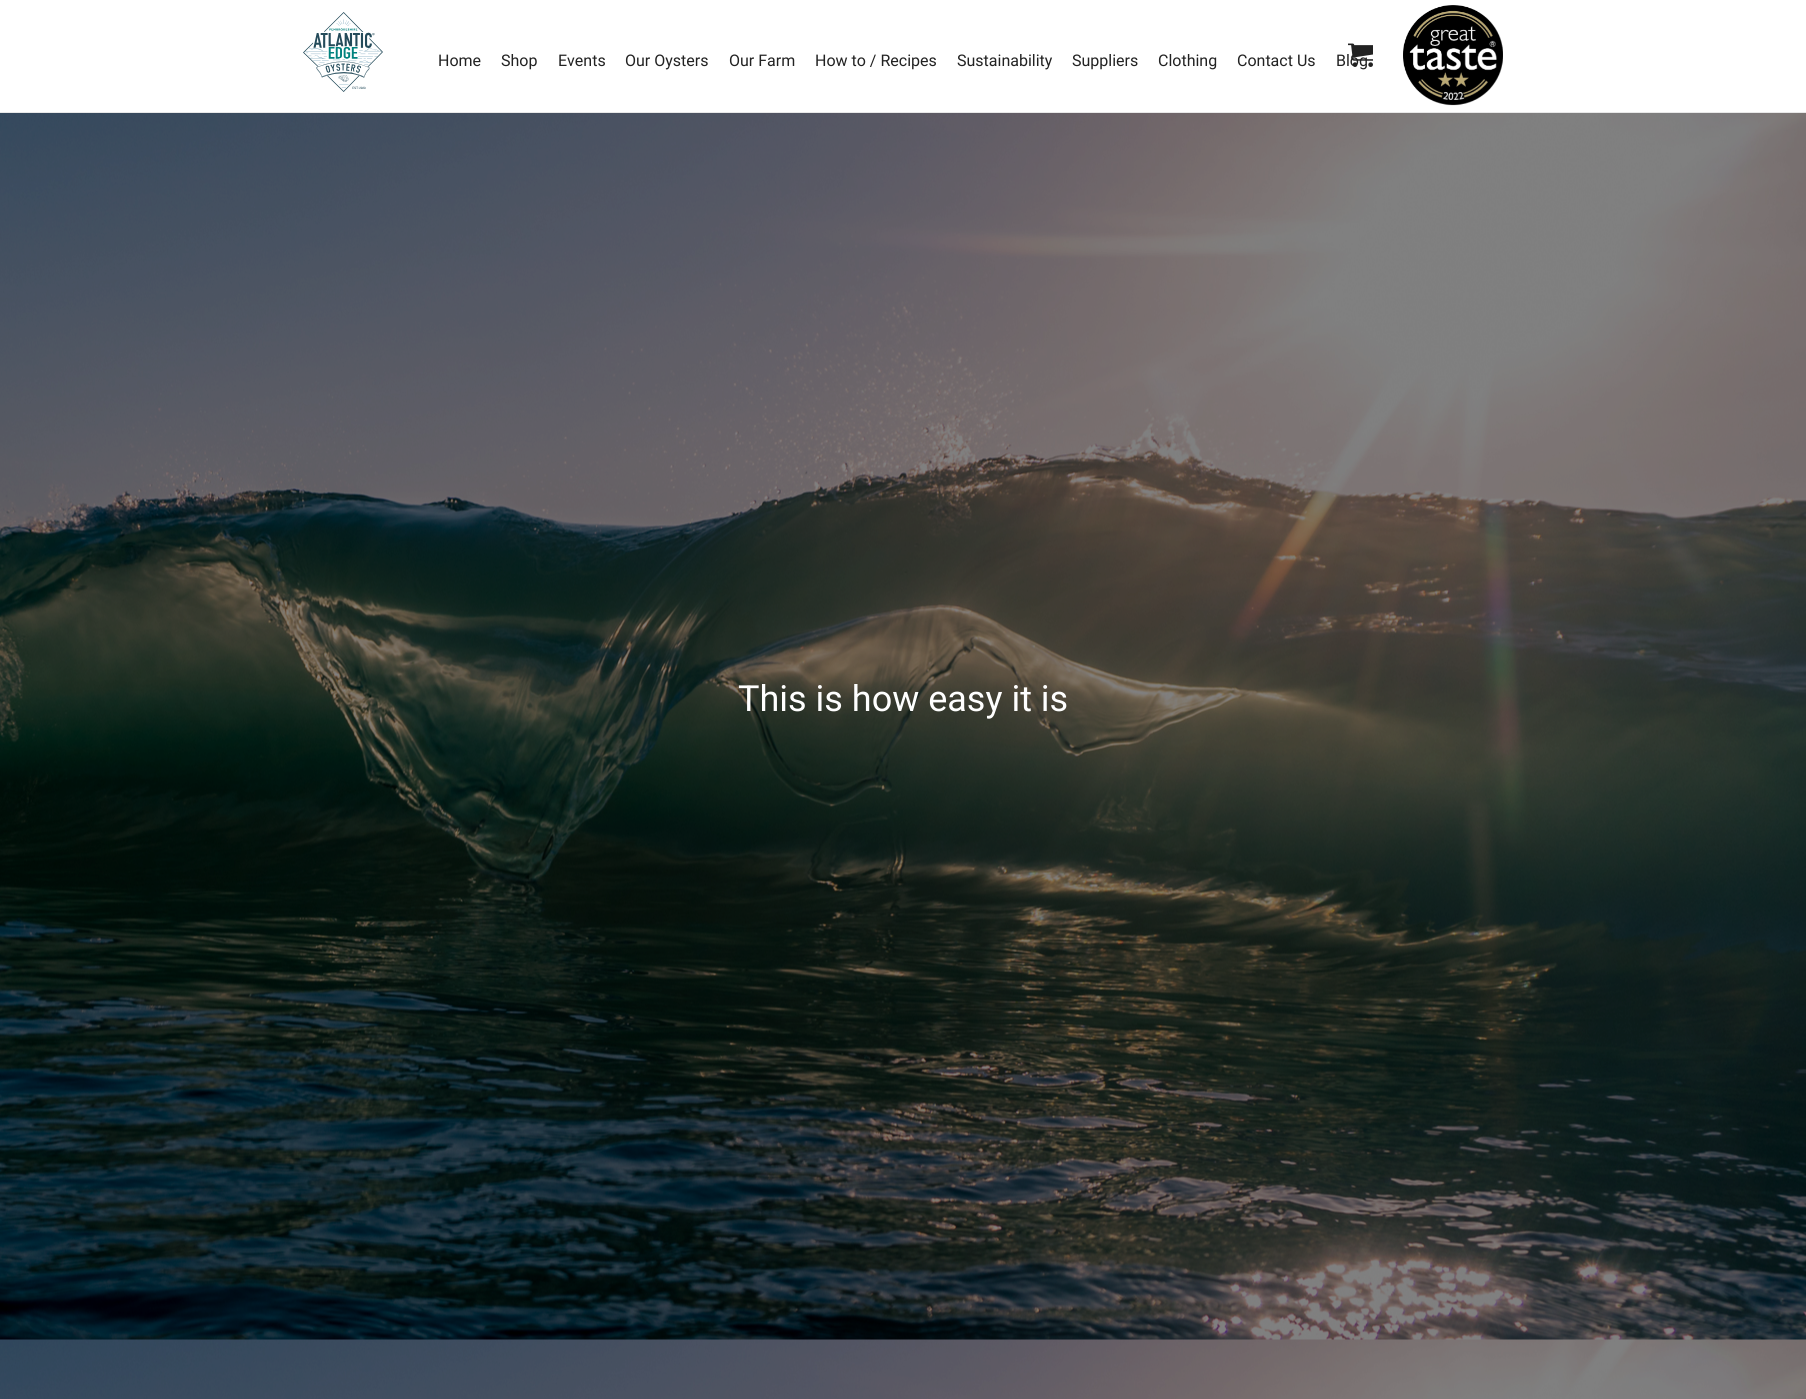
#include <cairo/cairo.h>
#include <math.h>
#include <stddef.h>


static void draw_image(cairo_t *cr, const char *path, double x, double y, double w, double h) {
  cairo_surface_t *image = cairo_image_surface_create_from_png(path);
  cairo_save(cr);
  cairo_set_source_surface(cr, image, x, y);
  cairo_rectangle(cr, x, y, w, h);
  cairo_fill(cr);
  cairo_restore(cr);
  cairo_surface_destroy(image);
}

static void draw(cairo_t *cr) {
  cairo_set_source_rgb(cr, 1, 1, 1);
  cairo_paint(cr);
  cairo_set_source_rgb(cr, 232 / 255.0, 232 / 255.0, 232 / 255.0);
  cairo_rectangle(cr, 0, 112, 1806, 1);
  cairo_fill(cr);
  draw_image(cr, "images/1.png", 303, 12, 80, 80);
  draw_image(cr, "images/3.png", 1403, 5, 100, 101);
  draw_image(cr, "images/4.png", 0, 113, 1806, 1286);
  cairo_select_font_face(cr, "Roboto", CAIRO_FONT_SLANT_NORMAL, CAIRO_FONT_WEIGHT_NORMAL);
  cairo_set_font_size(cr, 16);
  cairo_set_source_rgb(cr, 34 / 255.0, 34 / 255.0, 34 / 255.0);
  cairo_move_to(cr, 438, 66);
  cairo_show_text(cr, "Home");
  cairo_move_to(cr, 501, 66);
  cairo_show_text(cr, "Shop");
  cairo_move_to(cr, 558, 66);
  cairo_show_text(cr, "Events");
  cairo_move_to(cr, 625, 66);
  cairo_show_text(cr, "Our Oysters");
  cairo_move_to(cr, 729, 66);
  cairo_show_text(cr, "Our Farm");
  cairo_move_to(cr, 815, 66);
  cairo_show_text(cr, "How to / Recipes");
  cairo_move_to(cr, 957, 66);
  cairo_show_text(cr, "Sustainability");
  cairo_move_to(cr, 1072, 66);
  cairo_show_text(cr, "Suppliers");
  cairo_move_to(cr, 1158, 66);
  cairo_show_text(cr, "Clothing");
  cairo_move_to(cr, 1237, 66);
  cairo_show_text(cr, "Contact Us");
  cairo_move_to(cr, 1336, 66);
  cairo_show_text(cr, "Blog");
  draw_image(cr, "images/2.png", 1348, 43, 25, 24);
  cairo_set_font_size(cr, 36);
  cairo_set_source_rgb(cr, 1, 1, 1);
  cairo_move_to(cr, 738, 711);
  cairo_show_text(cr, "This is how easy it is");
}

int main(void) {
  cairo_surface_t *surface = cairo_image_surface_create(CAIRO_FORMAT_RGB24, 1806, 1399);
  cairo_t *cr = cairo_create(surface);
  cairo_font_options_t *options = cairo_font_options_create();
  cairo_font_options_set_hint_metrics(options, CAIRO_HINT_METRICS_OFF);
  cairo_font_options_set_hint_style(options, CAIRO_HINT_STYLE_NONE);
  cairo_set_font_options(cr, options);
  cairo_set_miter_limit(cr, 4);
  draw(cr);
  cairo_surface_write_to_png(surface, "out.png");
  cairo_font_options_destroy(options);
  cairo_destroy(cr);
  cairo_surface_destroy(surface);
  return 0;
}
